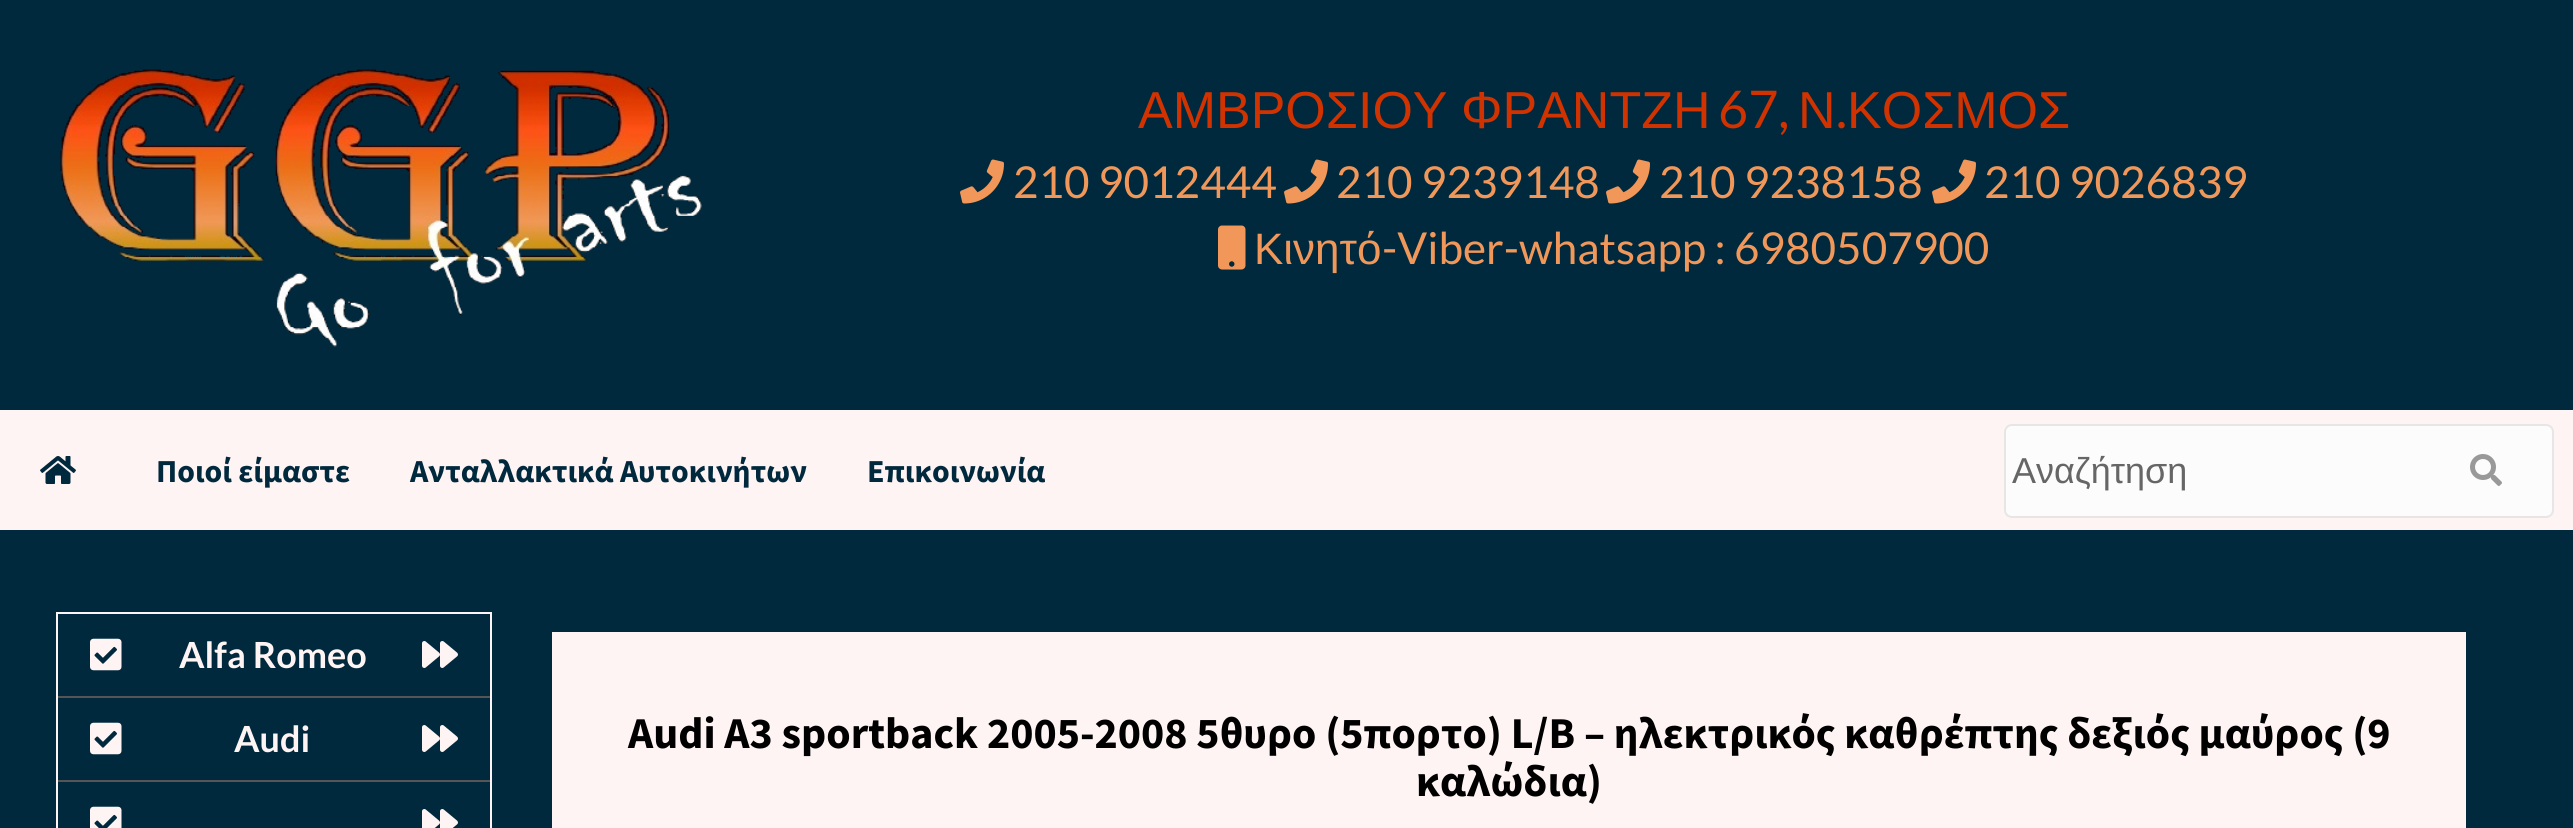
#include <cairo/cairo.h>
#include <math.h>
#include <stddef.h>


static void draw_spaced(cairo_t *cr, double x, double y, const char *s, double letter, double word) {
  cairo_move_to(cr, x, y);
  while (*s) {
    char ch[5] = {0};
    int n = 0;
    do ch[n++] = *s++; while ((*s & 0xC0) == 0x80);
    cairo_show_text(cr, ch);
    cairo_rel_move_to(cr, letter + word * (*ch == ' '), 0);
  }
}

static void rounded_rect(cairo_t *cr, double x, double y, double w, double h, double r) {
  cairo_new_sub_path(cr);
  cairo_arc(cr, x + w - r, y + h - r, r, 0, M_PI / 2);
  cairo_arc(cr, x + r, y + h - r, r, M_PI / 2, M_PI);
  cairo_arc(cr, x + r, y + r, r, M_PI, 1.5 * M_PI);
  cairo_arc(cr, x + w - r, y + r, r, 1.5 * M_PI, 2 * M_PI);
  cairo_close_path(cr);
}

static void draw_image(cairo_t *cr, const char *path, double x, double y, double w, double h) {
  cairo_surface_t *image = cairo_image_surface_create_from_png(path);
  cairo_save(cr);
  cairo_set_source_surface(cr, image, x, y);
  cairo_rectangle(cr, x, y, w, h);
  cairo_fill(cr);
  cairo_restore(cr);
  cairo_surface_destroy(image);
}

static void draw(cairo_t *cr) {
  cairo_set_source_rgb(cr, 0, 41 / 255.0, 61 / 255.0);
  cairo_paint(cr);
  draw_image(cr, "images/1.png", 60, 69, 642, 278);
  draw_image(cr, "images/2.png", 960, 159, 44, 45);
  draw_image(cr, "images/2.png", 1284, 159, 44, 45);
  draw_image(cr, "images/2.png", 1606, 159, 44, 45);
  draw_image(cr, "images/2.png", 1932, 159, 44, 45);
  draw_image(cr, "images/3.png", 1218, 225, 28, 45);
  cairo_set_source_rgb(cr, 1, 244 / 255.0, 244 / 255.0);
  cairo_rectangle(cr, 0, 410, 2573, 120);
  cairo_fill(cr);
  draw_image(cr, "images/4.png", 40, 456, 36, 28);
  cairo_set_source_rgb(cr, 252 / 255.0, 252 / 255.0, 252 / 255.0);
  rounded_rect(cr, 2005, 425, 548, 92, 7);
  cairo_fill_preserve(cr);
  cairo_set_source_rgb(cr, 230 / 255.0, 230 / 255.0, 230 / 255.0);
  cairo_stroke(cr);
  draw_image(cr, "images/5.png", 2470, 454, 32, 32);
  cairo_set_source_rgb(cr, 1, 244 / 255.0, 244 / 255.0);
  cairo_rectangle(cr, 56, 612, 436, 216);
  cairo_fill(cr);
  cairo_set_source_rgb(cr, 0, 41 / 255.0, 61 / 255.0);
  cairo_rectangle(cr, 58, 614, 432, 82);
  cairo_fill(cr);
  cairo_set_source_rgb(cr, 85 / 255.0, 85 / 255.0, 85 / 255.0);
  cairo_rectangle(cr, 58, 696, 432, 2);
  cairo_fill(cr);
  draw_image(cr, "images/6.png", 90, 638, 32, 33);
  draw_image(cr, "images/7.png", 422, 641, 36, 27);
  cairo_set_source_rgb(cr, 0, 41 / 255.0, 61 / 255.0);
  cairo_rectangle(cr, 58, 698, 432, 82);
  cairo_fill(cr);
  cairo_set_source_rgb(cr, 85 / 255.0, 85 / 255.0, 85 / 255.0);
  cairo_rectangle(cr, 58, 780, 432, 2);
  cairo_fill(cr);
  draw_image(cr, "images/6.png", 90, 722, 32, 33);
  draw_image(cr, "images/7.png", 422, 725, 36, 27);
  cairo_set_source_rgb(cr, 0, 41 / 255.0, 61 / 255.0);
  cairo_rectangle(cr, 58, 782, 432, 46);
  cairo_fill(cr);
  draw_image(cr, "images/8.png", 90, 806, 32, 22);
  draw_image(cr, "images/9.png", 422, 809, 36, 19);
  cairo_set_source_rgb(cr, 1, 244 / 255.0, 244 / 255.0);
  cairo_rectangle(cr, 552, 632, 1914, 196);
  cairo_fill(cr);
  cairo_select_font_face(cr, "Liberation Sans", CAIRO_FONT_SLANT_NORMAL, CAIRO_FONT_WEIGHT_NORMAL);
  cairo_set_font_size(cr, 52);
  cairo_set_source_rgb(cr, 208 / 255.0, 50 / 255.0, 0);
  draw_spaced(cr, 1138, 128, "ΑΜΒΡΟΣΙΟΥ ΦΡΑΝΤΖΗ", 0, -1);
  cairo_select_font_face(cr, "Lato", CAIRO_FONT_SLANT_NORMAL, CAIRO_FONT_WEIGHT_NORMAL);
  cairo_move_to(cr, 1718, 128);
  cairo_show_text(cr, "67,");
  cairo_select_font_face(cr, "Liberation Sans", CAIRO_FONT_SLANT_NORMAL, CAIRO_FONT_WEIGHT_NORMAL);
  cairo_move_to(cr, 1798, 128);
  cairo_show_text(cr, "Ν");
  cairo_select_font_face(cr, "Lato", CAIRO_FONT_SLANT_NORMAL, CAIRO_FONT_WEIGHT_NORMAL);
  cairo_move_to(cr, 1836, 128);
  cairo_show_text(cr, ".");
  cairo_select_font_face(cr, "Liberation Sans", CAIRO_FONT_SLANT_NORMAL, CAIRO_FONT_WEIGHT_NORMAL);
  cairo_move_to(cr, 1847, 128);
  cairo_show_text(cr, "ΚΟΣΜΟΣ");
  cairo_select_font_face(cr, "Lato", CAIRO_FONT_SLANT_NORMAL, CAIRO_FONT_WEIGHT_NORMAL);
  cairo_set_font_size(cr, 44);
  cairo_set_source_rgb(cr, 241 / 255.0, 151 / 255.0, 89 / 255.0);
  cairo_move_to(cr, 1013, 198);
  cairo_show_text(cr, "210 9012444");
  cairo_move_to(cr, 1336, 198);
  cairo_show_text(cr, "210 9239148");
  cairo_move_to(cr, 1659, 198);
  cairo_show_text(cr, "210 9238158");
  cairo_move_to(cr, 1984, 198);
  cairo_show_text(cr, "210 9026839");
  cairo_select_font_face(cr, "Liberation Sans", CAIRO_FONT_SLANT_NORMAL, CAIRO_FONT_WEIGHT_NORMAL);
  cairo_move_to(cr, 1254, 264);
  cairo_show_text(cr, "Κινητό");
  cairo_select_font_face(cr, "Lato", CAIRO_FONT_SLANT_NORMAL, CAIRO_FONT_WEIGHT_NORMAL);
  cairo_move_to(cr, 1382, 264);
  cairo_show_text(cr, "-Viber-whatsapp : 6980507900");
  cairo_select_font_face(cr, "Source Sans Pro", CAIRO_FONT_SLANT_NORMAL, CAIRO_FONT_WEIGHT_BOLD);
  cairo_set_font_size(cr, 32);
  cairo_set_source_rgb(cr, 0, 41 / 255.0, 61 / 255.0);
  cairo_move_to(cr, 156, 482);
  cairo_show_text(cr, "Ποιοί είμαστε");
  cairo_move_to(cr, 410, 482);
  cairo_show_text(cr, "Ανταλλακτικά Αυτοκινήτων");
  cairo_move_to(cr, 867, 482);
  cairo_show_text(cr, "Επικοινωνία");
  cairo_select_font_face(cr, "Liberation Sans", CAIRO_FONT_SLANT_NORMAL, CAIRO_FONT_WEIGHT_NORMAL);
  cairo_set_font_size(cr, 36);
  cairo_set_source_rgb(cr, 102 / 255.0, 102 / 255.0, 102 / 255.0);
  cairo_move_to(cr, 2012, 483);
  cairo_show_text(cr, "Αναζήτηση");
  cairo_select_font_face(cr, "Lato", CAIRO_FONT_SLANT_NORMAL, CAIRO_FONT_WEIGHT_BOLD);
  cairo_set_source_rgb(cr, 1, 244 / 255.0, 244 / 255.0);
  cairo_move_to(cr, 179, 668);
  cairo_show_text(cr, "Alfa Romeo");
  cairo_move_to(cr, 234, 752);
  cairo_show_text(cr, "Audi");
  cairo_select_font_face(cr, "Source Sans Pro", CAIRO_FONT_SLANT_NORMAL, CAIRO_FONT_WEIGHT_BOLD);
  cairo_set_font_size(cr, 44);
  cairo_set_source_rgb(cr, 0, 0, 0);
  cairo_move_to(cr, 628, 748);
  cairo_show_text(cr, "Audi A3 sportback 2005-2008 5θυρο (5πορτο) L/B – ηλεκτρικός καθρέπτης δεξιός μαύρος (9");
  cairo_move_to(cr, 1416, 796);
  cairo_show_text(cr, "καλώδια)");
}

int main(void) {
  cairo_surface_t *surface = cairo_image_surface_create(CAIRO_FORMAT_RGB24, 2573, 828);
  cairo_t *cr = cairo_create(surface);
  cairo_font_options_t *options = cairo_font_options_create();
  cairo_font_options_set_hint_metrics(options, CAIRO_HINT_METRICS_OFF);
  cairo_font_options_set_hint_style(options, CAIRO_HINT_STYLE_NONE);
  cairo_set_font_options(cr, options);
  cairo_set_miter_limit(cr, 4);
  draw(cr);
  cairo_surface_write_to_png(surface, "out.png");
  cairo_font_options_destroy(options);
  cairo_destroy(cr);
  cairo_surface_destroy(surface);
  return 0;
}
